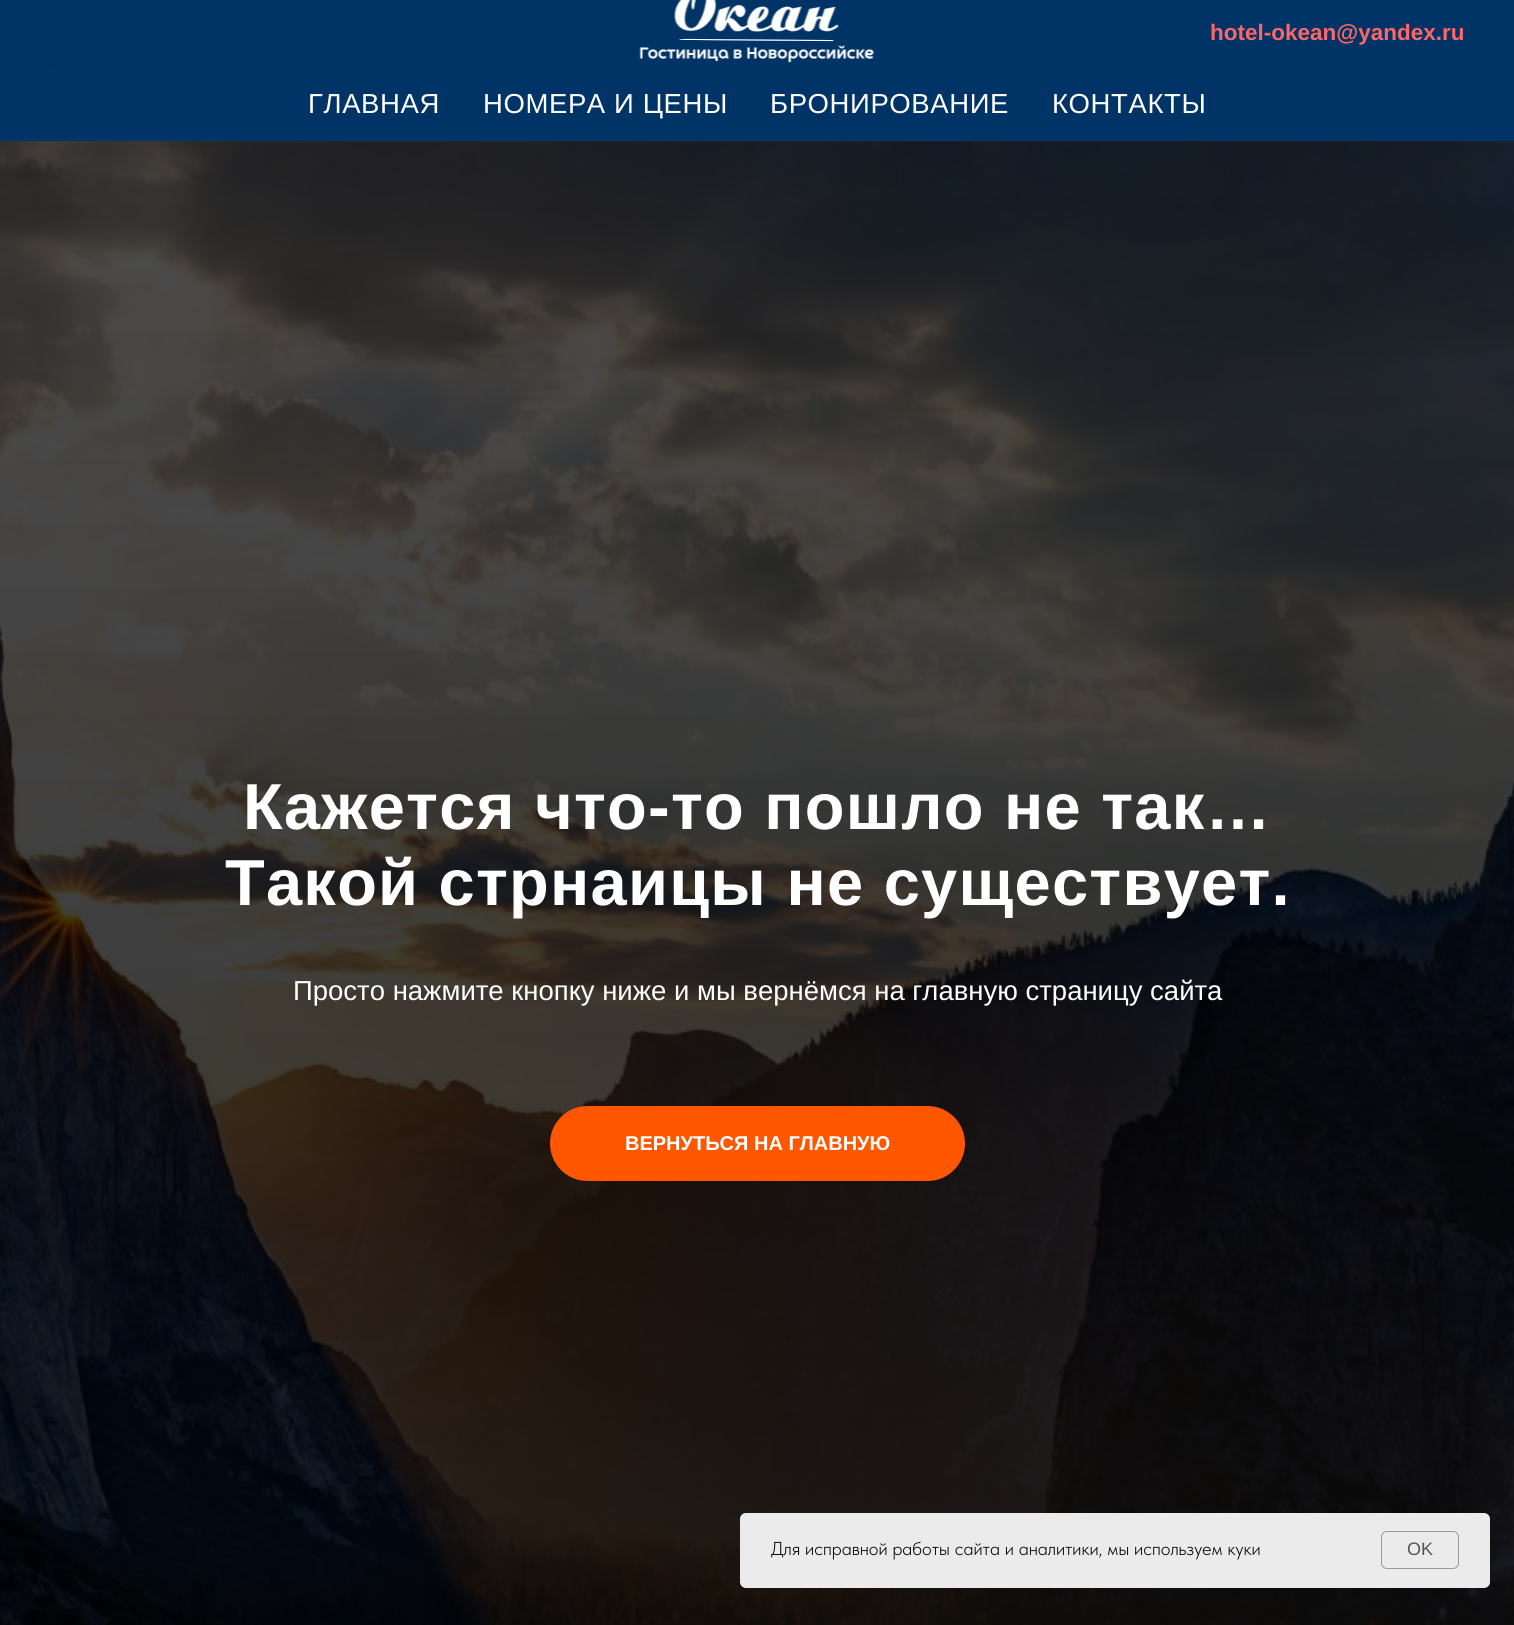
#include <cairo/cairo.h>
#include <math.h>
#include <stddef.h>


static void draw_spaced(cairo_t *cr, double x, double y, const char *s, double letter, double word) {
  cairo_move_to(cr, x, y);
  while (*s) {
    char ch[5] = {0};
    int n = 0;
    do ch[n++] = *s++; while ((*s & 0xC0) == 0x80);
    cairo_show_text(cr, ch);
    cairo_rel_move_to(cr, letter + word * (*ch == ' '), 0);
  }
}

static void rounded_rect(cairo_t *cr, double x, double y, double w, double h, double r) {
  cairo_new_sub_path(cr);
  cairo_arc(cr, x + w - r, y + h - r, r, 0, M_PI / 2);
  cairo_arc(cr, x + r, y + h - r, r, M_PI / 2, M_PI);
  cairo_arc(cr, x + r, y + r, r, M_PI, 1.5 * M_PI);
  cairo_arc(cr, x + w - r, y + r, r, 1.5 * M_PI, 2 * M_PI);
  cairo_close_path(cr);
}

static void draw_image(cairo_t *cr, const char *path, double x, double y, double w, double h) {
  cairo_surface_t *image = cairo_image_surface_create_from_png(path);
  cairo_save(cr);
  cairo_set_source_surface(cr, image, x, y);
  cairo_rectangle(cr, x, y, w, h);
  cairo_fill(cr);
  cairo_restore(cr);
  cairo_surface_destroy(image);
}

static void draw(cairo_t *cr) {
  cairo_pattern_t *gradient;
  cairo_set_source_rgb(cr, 1, 1, 1);
  cairo_paint(cr);
  cairo_set_source_rgb(cr, 0, 51 / 255.0, 102 / 255.0);
  cairo_rectangle(cr, 0, 0, 1514, 141);
  cairo_fill(cr);
  draw_image(cr, "images/1.png", 639, 0, 235, 63);
  cairo_set_source_rgb(cr, 0, 46 / 255.0, 92 / 255.0);
  cairo_rectangle(cr, 50, 65, 1415, 1);
  cairo_fill(cr);
  draw_image(cr, "images/2.png", 0, 141, 1514, 1);
  draw_image(cr, "images/3.png", 0, 141, 1514, 1484);
  gradient = cairo_pattern_create_linear(757, 141, 758, 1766);
  cairo_pattern_add_color_stop_rgba(gradient, 0, 0, 0, 0, 0.7);
  cairo_pattern_add_color_stop_rgba(gradient, 1, 0, 0, 0, 0.8);
  cairo_set_source(cr, gradient);
  cairo_pattern_destroy(gradient);
  cairo_rectangle(cr, 0, 141, 1514, 1484);
  cairo_fill(cr);
  cairo_set_source_rgb(cr, 1, 86 / 255.0, 0);
  rounded_rect(cr, 550, 1106, 415, 75, 37.5);
  cairo_fill(cr);
  cairo_set_source_rgb(cr, 235 / 255.0, 235 / 255.0, 235 / 255.0);
  rounded_rect(cr, 740, 1513, 750, 75, 6);
  cairo_fill(cr);
  rounded_rect(cr, 1381.5, 1531.5, 77, 37, 5.5);
  cairo_set_source_rgb(cr, 153 / 255.0, 153 / 255.0, 153 / 255.0);
  cairo_set_line_width(cr, 1);
  cairo_stroke(cr);
  cairo_select_font_face(cr, "Liberation Sans", CAIRO_FONT_SLANT_NORMAL, CAIRO_FONT_WEIGHT_BOLD);
  cairo_set_font_size(cr, 22.5);
  cairo_set_source_rgb(cr, 1, 102 / 255.0, 102 / 255.0);
  cairo_move_to(cr, 1210, 40);
  cairo_show_text(cr, "hotel-okean@yandex.ru");
  cairo_select_font_face(cr, "Liberation Sans", CAIRO_FONT_SLANT_NORMAL, CAIRO_FONT_WEIGHT_NORMAL);
  cairo_set_font_size(cr, 27.5);
  cairo_set_source_rgb(cr, 1, 1, 1);
  draw_spaced(cr, 308, 113, "ГЛАВНАЯ", 0.6, 0);
  draw_spaced(cr, 483, 113, "НОМЕРА И ЦЕНЫ", 0.6, 0);
  draw_spaced(cr, 770, 113, "БРОНИРОВАНИЕ", 0.6, 0);
  draw_spaced(cr, 1052, 113, "КОНТАКТЫ", 0.6, 0);
  cairo_select_font_face(cr, "Liberation Sans", CAIRO_FONT_SLANT_NORMAL, CAIRO_FONT_WEIGHT_BOLD);
  cairo_set_font_size(cr, 65);
  draw_spaced(cr, 243, 829, "Кажется что-то пошло не так…", 1.25, 0);
  draw_spaced(cr, 225, 905, "Такой стрнаицы не существует.", 1.25, 0);
  cairo_select_font_face(cr, "Liberation Sans", CAIRO_FONT_SLANT_NORMAL, CAIRO_FONT_WEIGHT_NORMAL);
  cairo_set_font_size(cr, 27.5);
  cairo_move_to(cr, 293, 1000);
  cairo_show_text(cr, "Просто нажмите кнопку ниже и мы вернёмся на главную страницу сайта");
  cairo_select_font_face(cr, "Liberation Sans", CAIRO_FONT_SLANT_NORMAL, CAIRO_FONT_WEIGHT_BOLD);
  cairo_set_font_size(cr, 20);
  cairo_move_to(cr, 625, 1150);
  cairo_show_text(cr, "ВЕРНУТЬСЯ НА ГЛАВНУЮ");
  cairo_select_font_face(cr, "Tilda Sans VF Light", CAIRO_FONT_SLANT_NORMAL, CAIRO_FONT_WEIGHT_NORMAL);
  cairo_set_font_size(cr, 18.75);
  cairo_set_source_rgb(cr, 0, 0, 0);
  cairo_move_to(cr, 771, 1555);
  cairo_show_text(cr, "Для исправной работы сайта и аналитики, мы используем куки");
  cairo_select_font_face(cr, "Liberation Sans", CAIRO_FONT_SLANT_NORMAL, CAIRO_FONT_WEIGHT_NORMAL);
  cairo_set_font_size(cr, 18);
  cairo_set_source_rgb(cr, 85 / 255.0, 85 / 255.0, 85 / 255.0);
  cairo_move_to(cr, 1407, 1555);
  cairo_show_text(cr, "OK");
}

int main(void) {
  cairo_surface_t *surface = cairo_image_surface_create(CAIRO_FORMAT_RGB24, 1514, 1625);
  cairo_t *cr = cairo_create(surface);
  cairo_font_options_t *options = cairo_font_options_create();
  cairo_font_options_set_hint_metrics(options, CAIRO_HINT_METRICS_OFF);
  cairo_font_options_set_hint_style(options, CAIRO_HINT_STYLE_NONE);
  cairo_set_font_options(cr, options);
  cairo_set_miter_limit(cr, 4);
  draw(cr);
  cairo_surface_write_to_png(surface, "out.png");
  cairo_font_options_destroy(options);
  cairo_destroy(cr);
  cairo_surface_destroy(surface);
  return 0;
}
